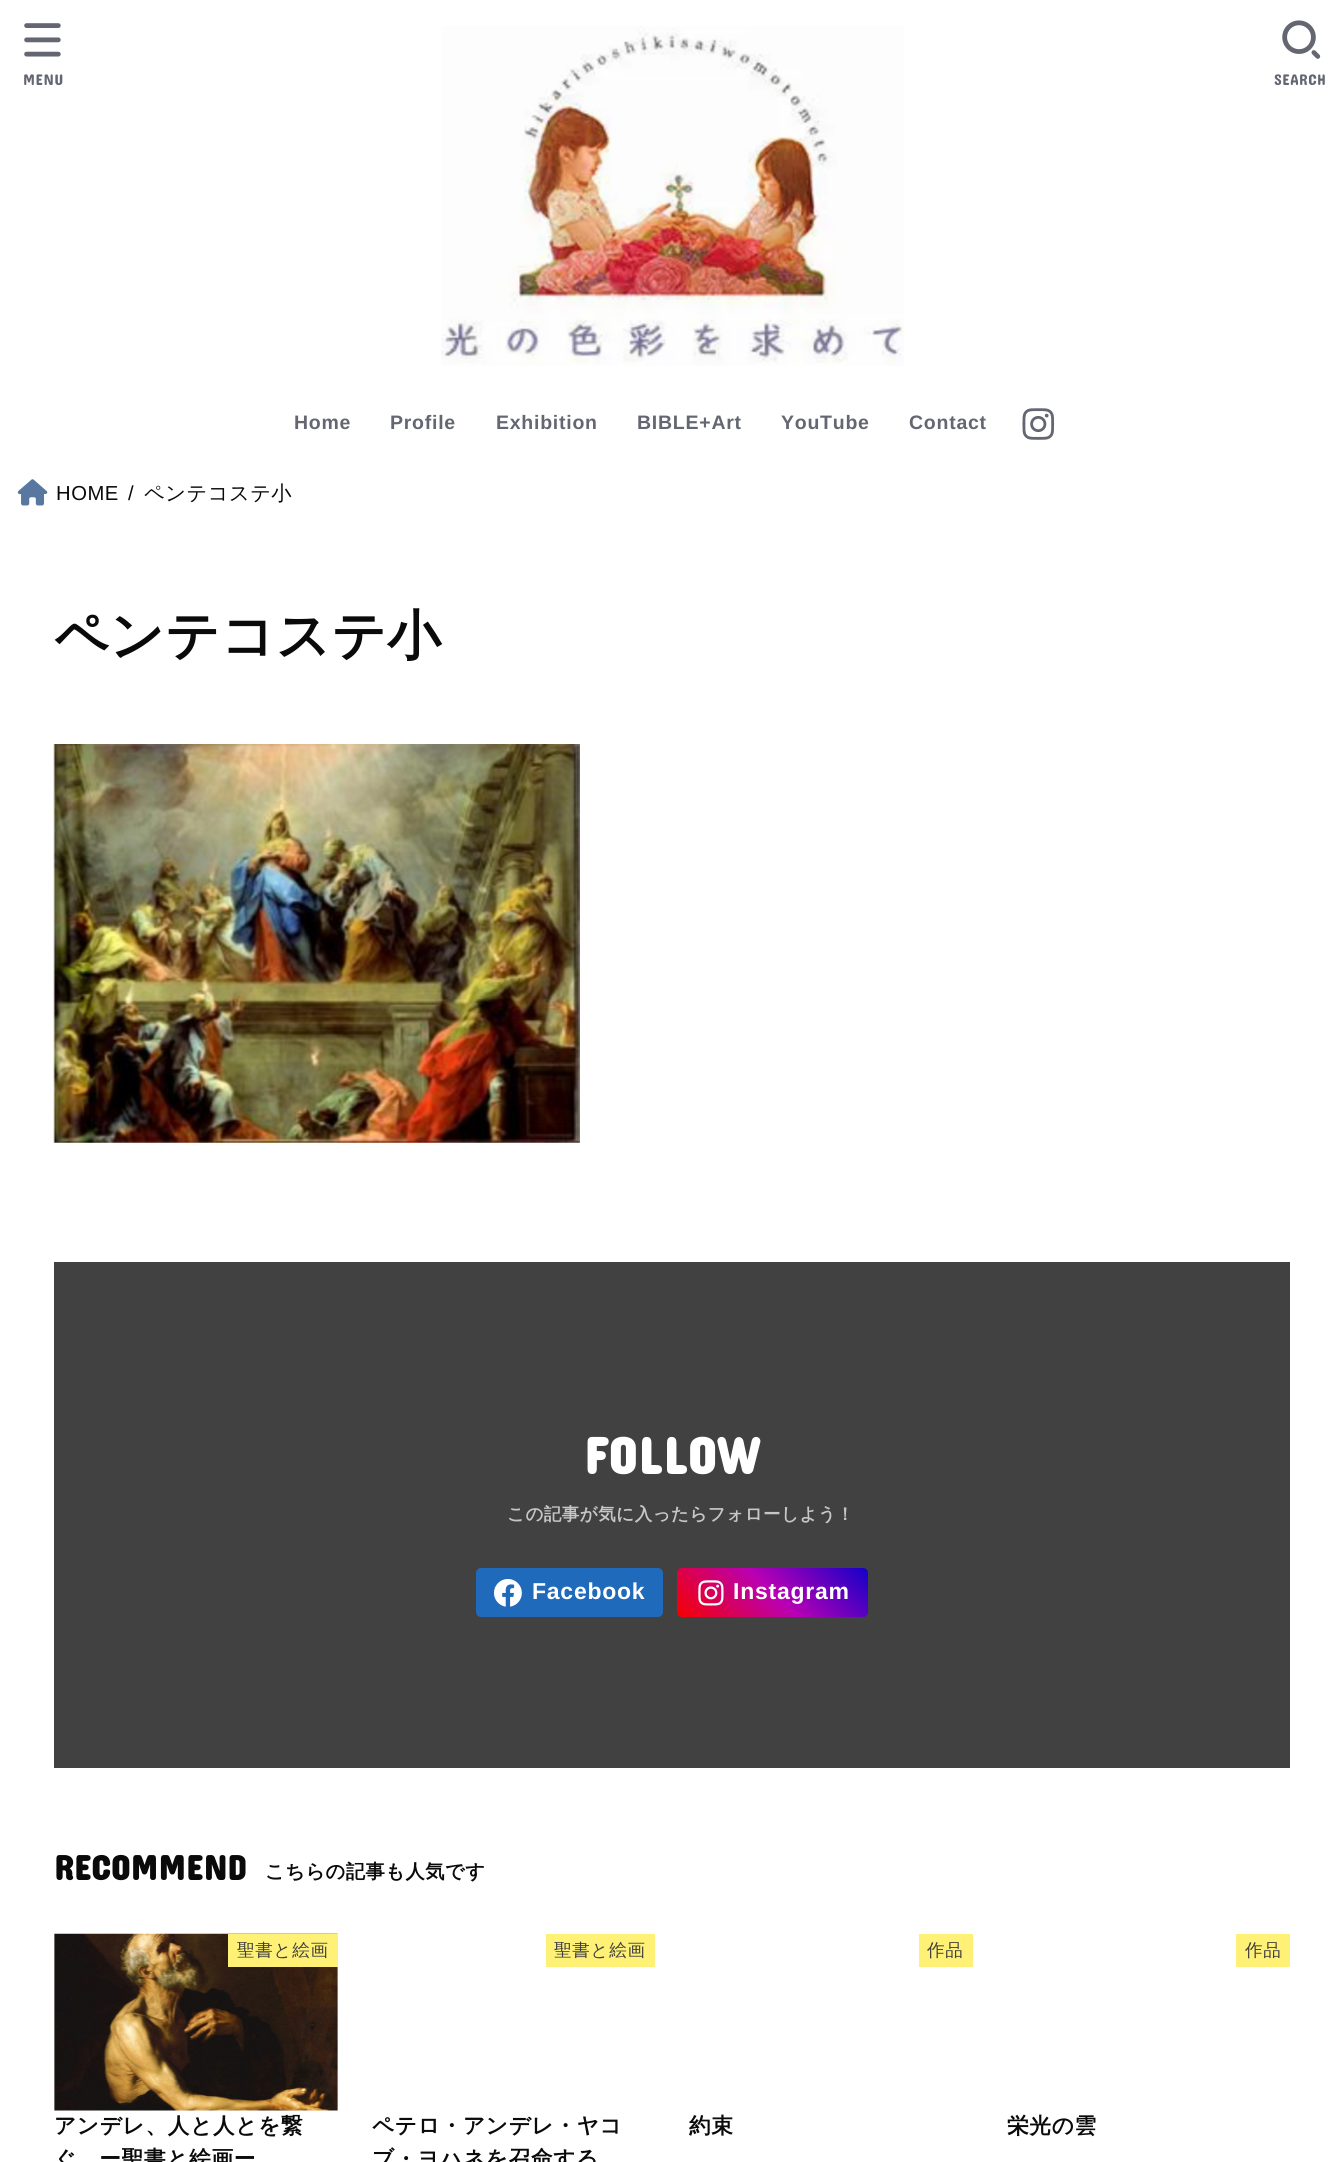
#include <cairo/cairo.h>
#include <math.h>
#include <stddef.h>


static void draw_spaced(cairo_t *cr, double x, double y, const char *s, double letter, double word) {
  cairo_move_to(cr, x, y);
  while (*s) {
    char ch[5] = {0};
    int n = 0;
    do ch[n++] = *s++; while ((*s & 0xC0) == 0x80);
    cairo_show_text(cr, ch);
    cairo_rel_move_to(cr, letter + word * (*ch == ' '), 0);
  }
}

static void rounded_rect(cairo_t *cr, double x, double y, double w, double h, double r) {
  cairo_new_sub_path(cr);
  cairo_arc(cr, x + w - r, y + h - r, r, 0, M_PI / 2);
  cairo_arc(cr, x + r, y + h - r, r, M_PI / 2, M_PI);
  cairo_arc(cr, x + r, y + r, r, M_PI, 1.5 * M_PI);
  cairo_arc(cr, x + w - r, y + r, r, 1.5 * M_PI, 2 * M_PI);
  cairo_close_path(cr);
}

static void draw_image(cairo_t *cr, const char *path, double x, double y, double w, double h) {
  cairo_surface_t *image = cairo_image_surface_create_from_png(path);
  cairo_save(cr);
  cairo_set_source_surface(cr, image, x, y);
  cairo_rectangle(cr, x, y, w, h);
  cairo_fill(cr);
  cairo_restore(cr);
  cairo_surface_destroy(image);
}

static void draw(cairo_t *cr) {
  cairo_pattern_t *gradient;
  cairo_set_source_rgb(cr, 1, 1, 1);
  cairo_paint(cr);
  draw_image(cr, "images/1.png", 24, 23, 37, 34);
  draw_image(cr, "images/2.png", 441, 26, 463, 340);
  draw_image(cr, "images/3.png", 1282, 20, 39, 39);
  draw_image(cr, "images/4.png", 1022, 408, 33, 32);
  draw_image(cr, "images/5.png", 17, 479, 31, 27);
  draw_image(cr, "images/6.png", 53, 744, 527, 399);
  cairo_set_source_rgb(cr, 65 / 255.0, 65 / 255.0, 65 / 255.0);
  cairo_rectangle(cr, 54, 1262, 1236, 506);
  cairo_fill(cr);
  cairo_set_source_rgb(cr, 31 / 255.0, 106 / 255.0, 186 / 255.0);
  rounded_rect(cr, 476, 1568, 187, 49, 5);
  cairo_fill(cr);
  draw_image(cr, "images/7.png", 494, 1579, 28, 28);
  gradient = cairo_pattern_create_linear(833, 1533, 713, 1652);
  cairo_pattern_add_color_stop_rgba(gradient, 0, 20 / 255.0, 0, 200 / 255.0, 1);
  cairo_pattern_add_color_stop_rgba(gradient, 0.5, 185 / 255.0, 0, 180 / 255.0, 1);
  cairo_pattern_add_color_stop_rgba(gradient, 1, 245 / 255.0, 0, 0, 1);
  cairo_set_source(cr, gradient);
  cairo_pattern_destroy(gradient);
  rounded_rect(cr, 677, 1568, 191, 49, 5);
  cairo_fill(cr);
  draw_image(cr, "images/8.png", 698, 1580, 26, 26);
  draw_image(cr, "images/9.png", 54, 1933, 284, 178);
  cairo_set_source_rgb(cr, 1, 241 / 255.0, 117 / 255.0);
  cairo_rectangle(cr, 228, 1934, 110, 33);
  cairo_fill(cr);
  cairo_rectangle(cr, 546, 1934, 109, 33);
  cairo_fill(cr);
  cairo_rectangle(cr, 919, 1934, 54, 33);
  cairo_fill(cr);
  cairo_rectangle(cr, 1236, 1934, 54, 33);
  cairo_fill(cr);
  cairo_select_font_face(cr, "Concert One", CAIRO_FONT_SLANT_NORMAL, CAIRO_FONT_WEIGHT_NORMAL);
  cairo_set_font_size(cr, 15.5);
  cairo_set_source_rgb(cr, 100 / 255.0, 103 / 255.0, 114 / 255.0);
  draw_spaced(cr, 23, 85, "MENU", 0.5, 0);
  draw_spaced(cr, 1274, 85, "SEARCH", 0.5, 0);
  cairo_select_font_face(cr, "Liberation Sans", CAIRO_FONT_SLANT_NORMAL, CAIRO_FONT_WEIGHT_BOLD);
  cairo_set_font_size(cr, 19.5);
  draw_spaced(cr, 294, 429, "Home", 0.75, 0);
  draw_spaced(cr, 390, 429, "Profile", 0.75, 0);
  draw_spaced(cr, 496, 429, "Exhibition", 0.75, 0);
  draw_spaced(cr, 637, 429, "BIBLE+Art", 0.75, 0);
  draw_spaced(cr, 781, 429, "YouTube", 0.75, 0);
  draw_spaced(cr, 909, 429, "Contact", 0.75, 0);
  cairo_select_font_face(cr, "Liberation Sans", CAIRO_FONT_SLANT_NORMAL, CAIRO_FONT_WEIGHT_NORMAL);
  cairo_set_font_size(cr, 20.25);
  cairo_set_source_rgb(cr, 10 / 255.0, 10 / 255.0, 10 / 255.0);
  draw_spaced(cr, 56, 500, "HOME", 0.5, 0);
  draw_spaced(cr, 128, 500, "/", 0.5, 0);
  cairo_select_font_face(cr, "WenQuanYi Zen Hei Medium", CAIRO_FONT_SLANT_NORMAL, CAIRO_FONT_WEIGHT_NORMAL);
  draw_spaced(cr, 144, 500, "ペンテコステ小", 0.5, 0);
  cairo_select_font_face(cr, "WenQuanYi Zen Hei", CAIRO_FONT_SLANT_NORMAL, CAIRO_FONT_WEIGHT_BOLD);
  cairo_set_font_size(cr, 53.75);
  draw_spaced(cr, 54, 654, "ペンテコステ小", 0.5, 0);
  cairo_select_font_face(cr, "Concert One", CAIRO_FONT_SLANT_NORMAL, CAIRO_FONT_WEIGHT_BOLD);
  cairo_set_font_size(cr, 52);
  cairo_set_source_rgb(cr, 1, 1, 1);
  draw_spaced(cr, 584, 1474, "FOLLOW", 0.5, 0);
  cairo_select_font_face(cr, "WenQuanYi Zen Hei", CAIRO_FONT_SLANT_NORMAL, CAIRO_FONT_WEIGHT_BOLD);
  cairo_set_font_size(cr, 17.5);
  cairo_set_source_rgb(cr, 198 / 255.0, 198 / 255.0, 198 / 255.0);
  draw_spaced(cr, 507, 1520, "この記事が気に入ったらフォローしよう！", 0.5, 0);
  cairo_select_font_face(cr, "Liberation Sans", CAIRO_FONT_SLANT_NORMAL, CAIRO_FONT_WEIGHT_BOLD);
  cairo_set_font_size(cr, 23);
  cairo_set_source_rgb(cr, 1, 1, 1);
  draw_spaced(cr, 532, 1599, "Facebook", 0.75, 0);
  draw_spaced(cr, 733, 1599, "Instagram", 0.75, 0);
  cairo_select_font_face(cr, "Concert One", CAIRO_FONT_SLANT_NORMAL, CAIRO_FONT_WEIGHT_BOLD);
  cairo_set_font_size(cr, 35);
  cairo_set_source_rgb(cr, 10 / 255.0, 10 / 255.0, 10 / 255.0);
  draw_spaced(cr, 54, 1880, "RECOMMEND", 0.5, 0);
  cairo_select_font_face(cr, "WenQuanYi Zen Hei", CAIRO_FONT_SLANT_NORMAL, CAIRO_FONT_WEIGHT_BOLD);
  cairo_set_font_size(cr, 19.25);
  draw_spaced(cr, 265, 1878, "こちらの記事も人気です", 0.5, 0);
  cairo_select_font_face(cr, "WenQuanYi Zen Hei Medium", CAIRO_FONT_SLANT_NORMAL, CAIRO_FONT_WEIGHT_NORMAL);
  cairo_set_font_size(cr, 17.5);
  cairo_set_source_rgb(cr, 62 / 255.0, 62 / 255.0, 62 / 255.0);
  draw_spaced(cr, 237, 1956, "聖書と絵画", 0.75, 0);
  cairo_select_font_face(cr, "WenQuanYi Zen Hei", CAIRO_FONT_SLANT_NORMAL, CAIRO_FONT_WEIGHT_BOLD);
  cairo_set_font_size(cr, 21.6);
  cairo_set_source_rgb(cr, 10 / 255.0, 10 / 255.0, 10 / 255.0);
  draw_spaced(cr, 54, 2133, "アンデレ、人と人とを繋", 0.75, 0);
  draw_spaced(cr, 54, 2166, "ぐ。ー聖書と絵画ー", 0.75, 0);
  cairo_select_font_face(cr, "WenQuanYi Zen Hei Medium", CAIRO_FONT_SLANT_NORMAL, CAIRO_FONT_WEIGHT_NORMAL);
  cairo_set_font_size(cr, 17.5);
  cairo_set_source_rgb(cr, 62 / 255.0, 62 / 255.0, 62 / 255.0);
  draw_spaced(cr, 554, 1956, "聖書と絵画", 0.75, 0);
  cairo_select_font_face(cr, "WenQuanYi Zen Hei", CAIRO_FONT_SLANT_NORMAL, CAIRO_FONT_WEIGHT_BOLD);
  cairo_set_font_size(cr, 21.6);
  cairo_set_source_rgb(cr, 10 / 255.0, 10 / 255.0, 10 / 255.0);
  draw_spaced(cr, 372, 2133, "ペテロ・アンデレ・ヤコ", 0.75, 0);
  draw_spaced(cr, 372, 2166, "ブ・ヨハネを召命する", 0.75, 0);
  cairo_select_font_face(cr, "WenQuanYi Zen Hei Medium", CAIRO_FONT_SLANT_NORMAL, CAIRO_FONT_WEIGHT_NORMAL);
  cairo_set_font_size(cr, 17.5);
  cairo_set_source_rgb(cr, 62 / 255.0, 62 / 255.0, 62 / 255.0);
  draw_spaced(cr, 927, 1956, "作品", 0.75, 0);
  cairo_select_font_face(cr, "WenQuanYi Zen Hei", CAIRO_FONT_SLANT_NORMAL, CAIRO_FONT_WEIGHT_BOLD);
  cairo_set_font_size(cr, 21.6);
  cairo_set_source_rgb(cr, 10 / 255.0, 10 / 255.0, 10 / 255.0);
  draw_spaced(cr, 689, 2133, "約束", 0.75, 0);
  cairo_select_font_face(cr, "WenQuanYi Zen Hei Medium", CAIRO_FONT_SLANT_NORMAL, CAIRO_FONT_WEIGHT_NORMAL);
  cairo_set_font_size(cr, 17.5);
  cairo_set_source_rgb(cr, 62 / 255.0, 62 / 255.0, 62 / 255.0);
  draw_spaced(cr, 1245, 1956, "作品", 0.75, 0);
  cairo_select_font_face(cr, "WenQuanYi Zen Hei", CAIRO_FONT_SLANT_NORMAL, CAIRO_FONT_WEIGHT_BOLD);
  cairo_set_font_size(cr, 21.6);
  cairo_set_source_rgb(cr, 10 / 255.0, 10 / 255.0, 10 / 255.0);
  draw_spaced(cr, 1007, 2133, "栄光の雲", 0.75, 0);
}

int main(void) {
  cairo_surface_t *surface = cairo_image_surface_create(CAIRO_FORMAT_RGB24, 1344, 2162);
  cairo_t *cr = cairo_create(surface);
  cairo_font_options_t *options = cairo_font_options_create();
  cairo_font_options_set_hint_metrics(options, CAIRO_HINT_METRICS_OFF);
  cairo_font_options_set_hint_style(options, CAIRO_HINT_STYLE_NONE);
  cairo_set_font_options(cr, options);
  cairo_set_miter_limit(cr, 4);
  draw(cr);
  cairo_surface_write_to_png(surface, "out.png");
  cairo_font_options_destroy(options);
  cairo_destroy(cr);
  cairo_surface_destroy(surface);
  return 0;
}
